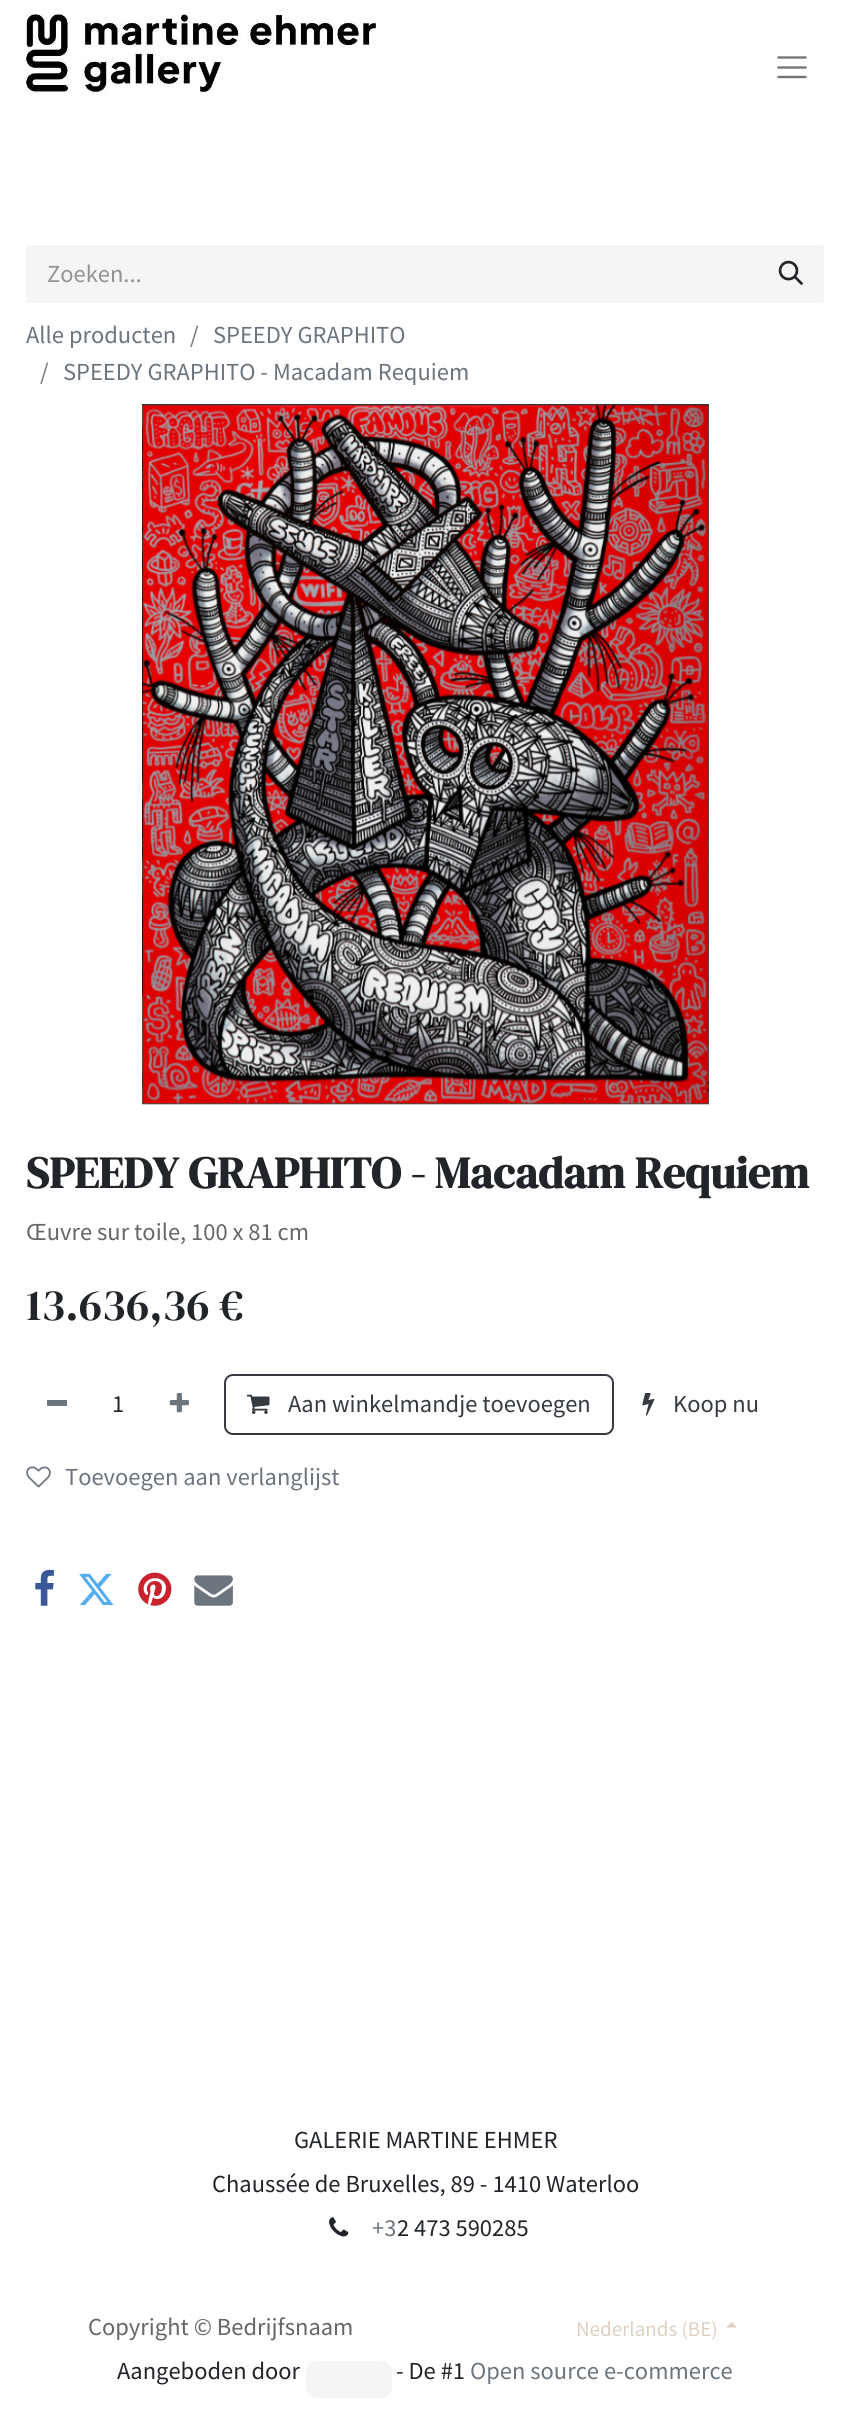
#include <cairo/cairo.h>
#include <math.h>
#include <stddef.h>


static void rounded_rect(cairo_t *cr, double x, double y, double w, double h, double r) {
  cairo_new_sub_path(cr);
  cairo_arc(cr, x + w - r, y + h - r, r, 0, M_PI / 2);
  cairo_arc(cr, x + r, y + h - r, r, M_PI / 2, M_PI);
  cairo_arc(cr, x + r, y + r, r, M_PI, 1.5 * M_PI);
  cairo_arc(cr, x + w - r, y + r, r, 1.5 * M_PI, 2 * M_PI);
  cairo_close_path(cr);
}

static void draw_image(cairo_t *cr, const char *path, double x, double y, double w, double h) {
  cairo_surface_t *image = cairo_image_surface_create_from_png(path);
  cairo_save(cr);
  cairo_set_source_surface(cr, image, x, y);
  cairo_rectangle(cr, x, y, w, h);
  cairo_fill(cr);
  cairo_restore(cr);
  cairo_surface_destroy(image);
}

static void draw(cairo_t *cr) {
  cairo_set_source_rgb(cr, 1, 1, 1);
  cairo_paint(cr);
  draw_image(cr, "images/1.png", 26, 14, 351, 80);
  cairo_new_path(cr);
  cairo_move_to(cr, 778.5, 57.5);
  cairo_line_to(cr, 805.5, 57.5);
  cairo_move_to(cr, 778.5, 67.5);
  cairo_line_to(cr, 805.5, 67.5);
  cairo_move_to(cr, 778.5, 77);
  cairo_line_to(cr, 805.5, 77);
  cairo_set_source_rgb(cr, 115 / 255.0, 115 / 255.0, 115 / 255.0);
  cairo_set_line_width(cr, 2.4);
  cairo_set_line_cap(cr, CAIRO_LINE_CAP_ROUND);
  cairo_stroke(cr);
  cairo_set_source_rgb(cr, 245 / 255.0, 245 / 255.0, 245 / 255.0);
  cairo_new_path(cr);
  cairo_move_to(cr, 28, 245);
  cairo_line_to(cr, 758, 245);
  cairo_line_to(cr, 758, 303);
  cairo_line_to(cr, 28, 303);
  cairo_curve_to(cr, 27, 303, 26, 302, 26, 301);
  cairo_line_to(cr, 26, 247);
  cairo_curve_to(cr, 26, 246, 27, 245, 28, 245);
  cairo_close_path(cr);
  cairo_fill(cr);
  cairo_new_path(cr);
  cairo_move_to(cr, 758, 245);
  cairo_line_to(cr, 822, 245);
  cairo_curve_to(cr, 823, 245, 824, 246, 824, 247);
  cairo_line_to(cr, 824, 301);
  cairo_curve_to(cr, 824, 302, 823, 303, 822, 303);
  cairo_line_to(cr, 758, 303);
  cairo_close_path(cr);
  cairo_fill(cr);
  draw_image(cr, "images/2.png", 778, 260, 26, 26);
  draw_image(cr, "images/3.png", 142, 404, 567, 701);
  cairo_set_source_rgb(cr, 108 / 255.0, 117 / 255.0, 125 / 255.0);
  cairo_rectangle(cr, 47, 1400, 20, 6);
  cairo_fill(cr);
  draw_image(cr, "images/4.png", 169, 1393, 20, 20);
  rounded_rect(cr, 225, 1375, 388, 59, 8);
  cairo_set_source_rgb(cr, 52 / 255.0, 58 / 255.0, 64 / 255.0);
  cairo_set_line_width(cr, 2);
  cairo_set_line_cap(cr, CAIRO_LINE_CAP_BUTT);
  cairo_stroke(cr);
  draw_image(cr, "images/5.png", 246, 1394, 24, 20);
  draw_image(cr, "images/6.png", 642, 1393, 13, 23);
  draw_image(cr, "images/7.png", 26, 1466, 25, 22);
  draw_image(cr, "images/8.png", 35, 1569, 19, 37);
  draw_image(cr, "images/9.png", 79, 1573, 35, 33);
  draw_image(cr, "images/10.png", 138, 1572, 34, 34);
  draw_image(cr, "images/11.png", 194, 1575, 39, 31);
  draw_image(cr, "images/12.png", 329, 2217, 20, 20);
  cairo_set_source_rgb(cr, 222 / 255.0, 209 / 255.0, 193 / 255.0);
  cairo_new_path(cr);
  cairo_move_to(cr, 737, 2327.5);
  cairo_line_to(cr, 726, 2327.5);
  cairo_line_to(cr, 731.5, 2322);
  cairo_close_path(cr);
  cairo_fill(cr);
  cairo_set_source_rgb(cr, 245 / 255.0, 245 / 255.0, 245 / 255.0);
  rounded_rect(cr, 306, 2361, 86, 37, 11);
  cairo_fill(cr);
  cairo_select_font_face(cr, "Source Sans Pro", CAIRO_FONT_SLANT_NORMAL, CAIRO_FONT_WEIGHT_NORMAL);
  cairo_set_font_size(cr, 24.5);
  cairo_set_source_rgb(cr, 144 / 255.0, 146 / 255.0, 148 / 255.0);
  cairo_move_to(cr, 47, 282);
  cairo_show_text(cr, "Zoeken...");
  cairo_set_source_rgb(cr, 108 / 255.0, 117 / 255.0, 125 / 255.0);
  cairo_move_to(cr, 26, 343);
  cairo_show_text(cr, "Alle producten");
  cairo_move_to(cr, 190, 343);
  cairo_show_text(cr, "/");
  cairo_move_to(cr, 213, 343);
  cairo_show_text(cr, "SPEEDY GRAPHITO");
  cairo_move_to(cr, 40, 380);
  cairo_show_text(cr, "/");
  cairo_move_to(cr, 63, 380);
  cairo_show_text(cr, "SPEEDY GRAPHITO - Macadam Requiem");
  cairo_select_font_face(cr, "DM Serif Display", CAIRO_FONT_SLANT_NORMAL, CAIRO_FONT_WEIGHT_BOLD);
  cairo_set_font_size(cr, 44.4);
  cairo_set_source_rgb(cr, 33 / 255.0, 37 / 255.0, 41 / 255.0);
  cairo_move_to(cr, 26, 1188);
  cairo_show_text(cr, "SPEEDY GRAPHITO - Macadam Requiem");
  cairo_select_font_face(cr, "Source Sans Pro", CAIRO_FONT_SLANT_NORMAL, CAIRO_FONT_WEIGHT_NORMAL);
  cairo_set_font_size(cr, 24.5);
  cairo_set_source_rgb(cr, 100 / 255.0, 102 / 255.0, 105 / 255.0);
  cairo_move_to(cr, 26, 1240);
  cairo_show_text(cr, "Œuvre sur toile, 100 x 81 cm");
  cairo_select_font_face(cr, "DM Serif Display", CAIRO_FONT_SLANT_NORMAL, CAIRO_FONT_WEIGHT_NORMAL);
  cairo_set_font_size(cr, 44.4);
  cairo_set_source_rgb(cr, 33 / 255.0, 37 / 255.0, 41 / 255.0);
  cairo_move_to(cr, 26, 1320);
  cairo_show_text(cr, "13.636,36 €");
  cairo_select_font_face(cr, "Source Sans Pro", CAIRO_FONT_SLANT_NORMAL, CAIRO_FONT_WEIGHT_NORMAL);
  cairo_set_font_size(cr, 24.5);
  cairo_move_to(cr, 112, 1412);
  cairo_show_text(cr, "1");
  cairo_set_source_rgb(cr, 52 / 255.0, 58 / 255.0, 64 / 255.0);
  cairo_move_to(cr, 288, 1412);
  cairo_show_text(cr, "Aan winkelmandje toevoegen");
  cairo_move_to(cr, 673, 1412);
  cairo_show_text(cr, "Koop nu");
  cairo_set_source_rgb(cr, 108 / 255.0, 117 / 255.0, 125 / 255.0);
  cairo_move_to(cr, 65, 1485);
  cairo_show_text(cr, "Toevoegen aan verlanglijst");
  cairo_set_source_rgb(cr, 33 / 255.0, 37 / 255.0, 41 / 255.0);
  cairo_move_to(cr, 294, 2148);
  cairo_show_text(cr, "GALERIE MARTINE EHMER");
  cairo_move_to(cr, 212, 2192);
  cairo_show_text(cr, "Chaussée de Bruxelles, 89 - 1410 Waterloo");
  cairo_set_source_rgb(cr, 108 / 255.0, 117 / 255.0, 125 / 255.0);
  cairo_move_to(cr, 372, 2236);
  cairo_show_text(cr, "+3");
  cairo_set_source_rgb(cr, 33 / 255.0, 37 / 255.0, 41 / 255.0);
  cairo_move_to(cr, 397, 2236);
  cairo_show_text(cr, "2 473 590285");
  cairo_set_source_rgb(cr, 100 / 255.0, 102 / 255.0, 105 / 255.0);
  cairo_move_to(cr, 88, 2335);
  cairo_show_text(cr, "Copyright © Bedrijfsnaam");
  cairo_set_font_size(cr, 21);
  cairo_set_source_rgb(cr, 222 / 255.0, 209 / 255.0, 193 / 255.0);
  cairo_move_to(cr, 576, 2336);
  cairo_show_text(cr, "Nederlands (BE)");
  cairo_set_font_size(cr, 24.5);
  cairo_set_source_rgb(cr, 33 / 255.0, 37 / 255.0, 41 / 255.0);
  cairo_move_to(cr, 117, 2379);
  cairo_show_text(cr, "Aangeboden door");
  cairo_move_to(cr, 396, 2379);
  cairo_show_text(cr, "- De #1");
  cairo_set_source_rgb(cr, 108 / 255.0, 117 / 255.0, 125 / 255.0);
  cairo_move_to(cr, 470, 2379);
  cairo_show_text(cr, "Open source e-commerce");
}

int main(void) {
  cairo_surface_t *surface = cairo_image_surface_create(CAIRO_FORMAT_RGB24, 850, 2424);
  cairo_t *cr = cairo_create(surface);
  cairo_font_options_t *options = cairo_font_options_create();
  cairo_font_options_set_hint_metrics(options, CAIRO_HINT_METRICS_OFF);
  cairo_font_options_set_hint_style(options, CAIRO_HINT_STYLE_NONE);
  cairo_set_font_options(cr, options);
  cairo_set_miter_limit(cr, 4);
  draw(cr);
  cairo_surface_write_to_png(surface, "out.png");
  cairo_font_options_destroy(options);
  cairo_destroy(cr);
  cairo_surface_destroy(surface);
  return 0;
}
